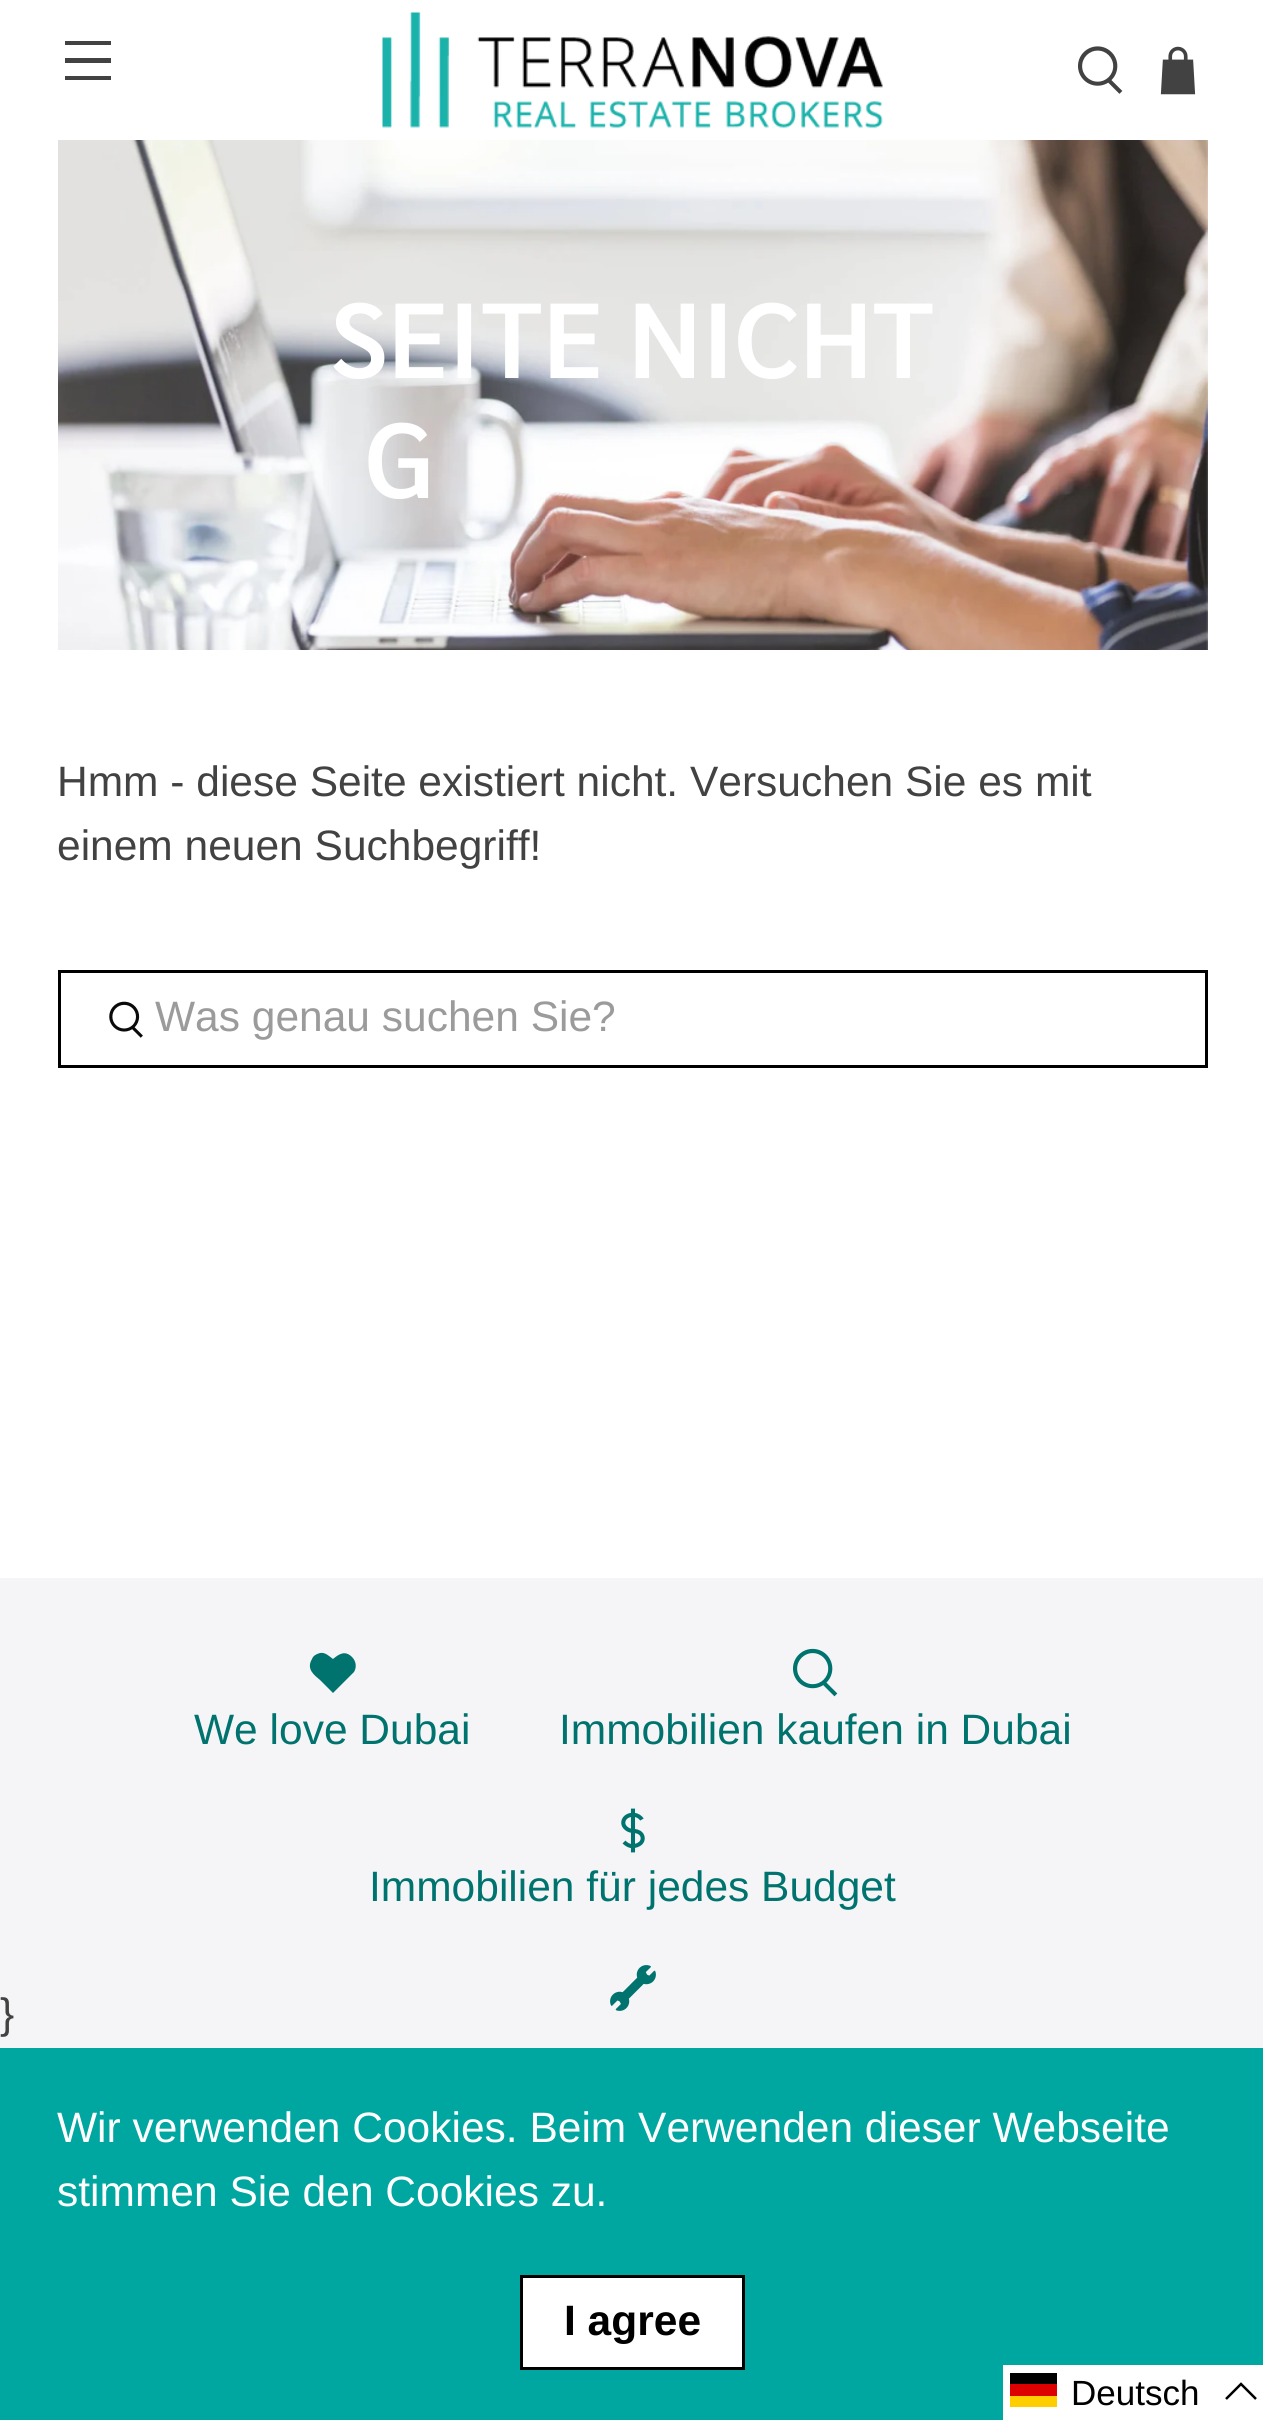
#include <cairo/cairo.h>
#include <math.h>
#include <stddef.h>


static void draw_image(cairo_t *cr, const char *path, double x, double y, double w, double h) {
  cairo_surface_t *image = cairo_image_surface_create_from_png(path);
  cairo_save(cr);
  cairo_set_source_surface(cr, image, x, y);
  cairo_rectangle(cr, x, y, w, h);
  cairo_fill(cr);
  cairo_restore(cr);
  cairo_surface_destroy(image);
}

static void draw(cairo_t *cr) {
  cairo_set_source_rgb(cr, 1, 1, 1);
  cairo_paint(cr);
  cairo_set_source_rgb(cr, 66 / 255.0, 66 / 255.0, 66 / 255.0);
  cairo_rectangle(cr, 65, 41, 46, 4);
  cairo_fill(cr);
  cairo_rectangle(cr, 65, 58, 46, 5);
  cairo_fill(cr);
  cairo_rectangle(cr, 65, 76, 46, 4);
  cairo_fill(cr);
  draw_image(cr, "images/1.png", 382, 12, 501, 116);
  draw_image(cr, "images/2.png", 1078, 46, 45, 48);
  draw_image(cr, "images/3.png", 1160, 46, 36, 49);
  draw_image(cr, "images/4.png", 58, 140, 1150, 510);
  cairo_rectangle(cr, 59.5, 971.5, 1147, 95);
  cairo_set_source_rgb(cr, 0, 0, 0);
  cairo_set_line_width(cr, 3);
  cairo_stroke(cr);
  draw_image(cr, "images/5.png", 109, 1001, 34, 37);
  cairo_set_source_rgb(cr, 245 / 255.0, 245 / 255.0, 247 / 255.0);
  cairo_rectangle(cr, 0, 1578, 1263, 470);
  cairo_fill(cr);
  cairo_set_source_rgb(cr, 0, 115 / 255.0, 111 / 255.0);
  cairo_new_path(cr);
  cairo_move_to(cr, 352, 1657);
  cairo_curve_to(cr, 345, 1650, 339, 1654, 333, 1659);
  cairo_curve_to(cr, 329, 1656, 325, 1652, 320, 1653);
  cairo_curve_to(cr, 316, 1654, 313, 1656, 312, 1659);
  cairo_curve_to(cr, 306, 1669, 314, 1675, 320, 1680);
  cairo_line_to(cr, 333, 1693);
  cairo_line_to(cr, 354, 1672);
  cairo_curve_to(cr, 357, 1667, 356, 1661, 352, 1657);
  cairo_close_path(cr);
  cairo_fill(cr);
  draw_image(cr, "images/6.png", 793, 1648, 45, 49);
  draw_image(cr, "images/7.png", 621, 1808, 24, 45);
  draw_image(cr, "images/8.png", 610, 1965, 46, 46);
  cairo_set_source_rgb(cr, 0, 166 / 255.0, 160 / 255.0);
  cairo_rectangle(cr, 0, 2048, 1263, 372);
  cairo_fill(cr);
  cairo_set_source_rgb(cr, 1, 1, 1);
  cairo_rectangle(cr, 521.5, 2276.5, 222, 92);
  cairo_fill_preserve(cr);
  cairo_set_source_rgb(cr, 0, 0, 0);
  cairo_stroke(cr);
  cairo_set_source_rgb(cr, 1, 1, 1);
  cairo_rectangle(cr, 1003, 2365, 260, 55);
  cairo_fill(cr);
  cairo_set_source_rgb(cr, 1, 206 / 255.0, 0);
  cairo_rectangle(cr, 1010, 2396, 47, 11);
  cairo_fill(cr);
  cairo_set_source_rgb(cr, 0, 0, 0);
  cairo_rectangle(cr, 1010, 2373, 47, 11);
  cairo_fill(cr);
  cairo_set_source_rgb(cr, 221 / 255.0, 0, 0);
  cairo_rectangle(cr, 1010, 2384, 47, 12);
  cairo_fill(cr);
  cairo_new_path(cr);
  cairo_move_to(cr, 1256, 2399);
  cairo_line_to(cr, 1241, 2384);
  cairo_line_to(cr, 1226, 2399);
  cairo_set_source_rgb(cr, 0, 0, 0);
  cairo_set_line_width(cr, 2.5);
  cairo_stroke(cr);
  cairo_select_font_face(cr, "Sarabun SemiBold", CAIRO_FONT_SLANT_NORMAL, CAIRO_FONT_WEIGHT_NORMAL);
  cairo_set_font_size(cr, 106.25);
  cairo_set_source_rgb(cr, 1, 1, 1);
  cairo_move_to(cr, 330, 378);
  cairo_show_text(cr, "SEITE NICHT");
  cairo_move_to(cr, 365, 498);
  cairo_show_text(cr, "G");
  cairo_select_font_face(cr, "Liberation Sans", CAIRO_FONT_SLANT_NORMAL, CAIRO_FONT_WEIGHT_NORMAL);
  cairo_set_font_size(cr, 42.5);
  cairo_set_source_rgb(cr, 66 / 255.0, 66 / 255.0, 66 / 255.0);
  cairo_move_to(cr, 57, 796);
  cairo_show_text(cr, "Hmm - diese Seite existiert nicht. Versuchen Sie es mit");
  cairo_move_to(cr, 57, 860);
  cairo_show_text(cr, "einem neuen Suchbegriff!");
  cairo_set_source_rgb(cr, 155 / 255.0, 155 / 255.0, 155 / 255.0);
  cairo_move_to(cr, 155, 1031);
  cairo_show_text(cr, "Was genau suchen Sie?");
  cairo_set_source_rgb(cr, 0, 115 / 255.0, 111 / 255.0);
  cairo_move_to(cr, 194, 1744);
  cairo_show_text(cr, "We love Dubai");
  cairo_move_to(cr, 559, 1744);
  cairo_show_text(cr, "Immobilien kaufen in Dubai");
  cairo_move_to(cr, 369, 1901);
  cairo_show_text(cr, "Immobilien für jedes Budget");
  cairo_set_source_rgb(cr, 66 / 255.0, 66 / 255.0, 66 / 255.0);
  cairo_move_to(cr, 0, 2028);
  cairo_show_text(cr, "}");
  cairo_set_source_rgb(cr, 1, 1, 1);
  cairo_move_to(cr, 57, 2142);
  cairo_show_text(cr, "Wir verwenden Cookies. Beim Verwenden dieser Webseite");
  cairo_move_to(cr, 57, 2206);
  cairo_show_text(cr, "stimmen Sie den Cookies zu.");
  cairo_select_font_face(cr, "Liberation Sans", CAIRO_FONT_SLANT_NORMAL, CAIRO_FONT_WEIGHT_BOLD);
  cairo_set_source_rgb(cr, 0, 0, 0);
  cairo_move_to(cr, 564, 2335);
  cairo_show_text(cr, "I agree");
  cairo_select_font_face(cr, "Liberation Sans", CAIRO_FONT_SLANT_NORMAL, CAIRO_FONT_WEIGHT_NORMAL);
  cairo_set_font_size(cr, 35);
  cairo_move_to(cr, 1071, 2405);
  cairo_show_text(cr, "Deutsch");
}

int main(void) {
  cairo_surface_t *surface = cairo_image_surface_create(CAIRO_FORMAT_RGB24, 1263, 2420);
  cairo_t *cr = cairo_create(surface);
  cairo_font_options_t *options = cairo_font_options_create();
  cairo_font_options_set_hint_metrics(options, CAIRO_HINT_METRICS_OFF);
  cairo_font_options_set_hint_style(options, CAIRO_HINT_STYLE_NONE);
  cairo_set_font_options(cr, options);
  cairo_set_miter_limit(cr, 4);
  draw(cr);
  cairo_surface_write_to_png(surface, "out.png");
  cairo_font_options_destroy(options);
  cairo_destroy(cr);
  cairo_surface_destroy(surface);
  return 0;
}
